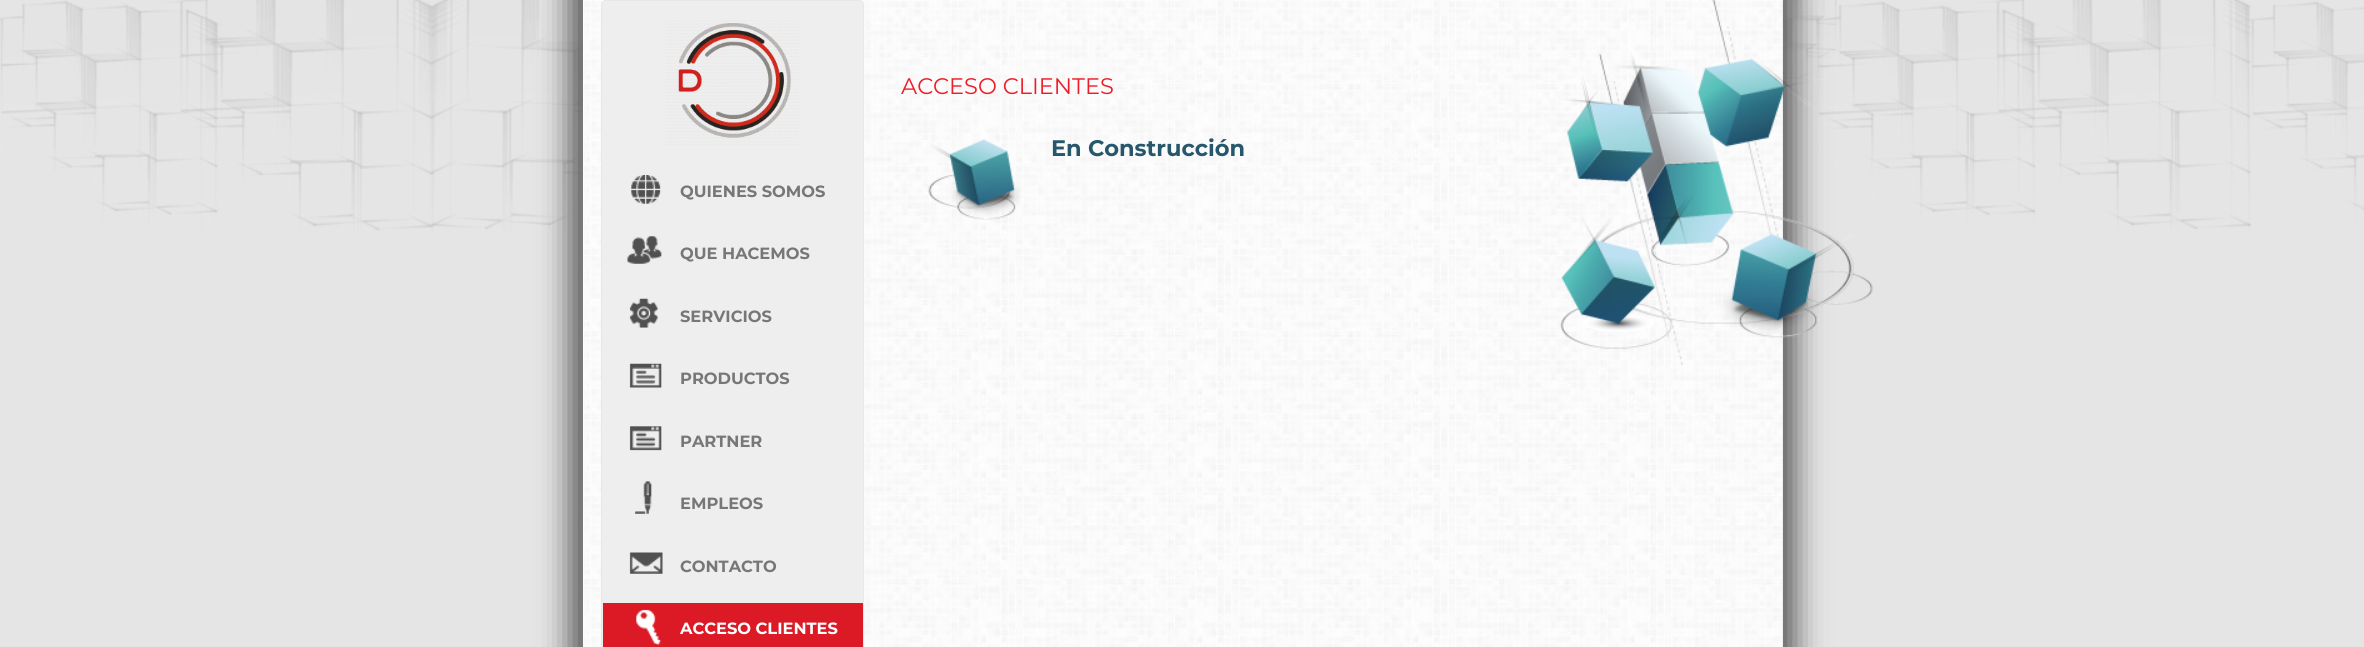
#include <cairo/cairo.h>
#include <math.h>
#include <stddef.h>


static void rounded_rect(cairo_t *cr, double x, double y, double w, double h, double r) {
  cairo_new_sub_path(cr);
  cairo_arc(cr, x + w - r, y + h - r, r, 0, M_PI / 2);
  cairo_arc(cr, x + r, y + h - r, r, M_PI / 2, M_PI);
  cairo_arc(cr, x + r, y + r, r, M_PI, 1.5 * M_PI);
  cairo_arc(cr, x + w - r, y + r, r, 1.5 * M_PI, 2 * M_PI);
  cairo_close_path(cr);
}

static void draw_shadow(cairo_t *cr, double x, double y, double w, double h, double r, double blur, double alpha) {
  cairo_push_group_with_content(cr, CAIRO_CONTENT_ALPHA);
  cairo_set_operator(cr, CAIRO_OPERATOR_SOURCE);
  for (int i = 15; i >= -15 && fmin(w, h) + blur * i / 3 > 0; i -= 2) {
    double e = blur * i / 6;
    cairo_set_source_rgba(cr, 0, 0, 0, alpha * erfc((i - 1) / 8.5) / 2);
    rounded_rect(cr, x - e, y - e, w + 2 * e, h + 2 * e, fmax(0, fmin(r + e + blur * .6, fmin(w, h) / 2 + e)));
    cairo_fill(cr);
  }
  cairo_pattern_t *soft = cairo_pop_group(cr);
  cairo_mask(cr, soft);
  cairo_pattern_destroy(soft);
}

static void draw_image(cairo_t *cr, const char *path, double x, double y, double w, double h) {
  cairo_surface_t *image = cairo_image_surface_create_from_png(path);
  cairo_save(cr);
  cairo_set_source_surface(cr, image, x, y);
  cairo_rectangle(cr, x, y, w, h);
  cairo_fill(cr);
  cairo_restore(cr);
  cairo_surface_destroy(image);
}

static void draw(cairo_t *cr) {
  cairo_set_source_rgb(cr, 229 / 255.0, 229 / 255.0, 229 / 255.0);
  cairo_paint(cr);
  draw_image(cr, "images/1.png", 0, 0, 2364, 231);
  draw_image(cr, "images/2.png", 582, 0, 1201, 647);
  cairo_save(cr);
  cairo_set_fill_rule(cr, CAIRO_FILL_RULE_EVEN_ODD);
  cairo_new_path(cr);
  cairo_move_to(cr, 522, 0);
  cairo_line_to(cr, 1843, 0);
  cairo_line_to(cr, 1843, 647);
  cairo_line_to(cr, 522, 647);
  cairo_close_path(cr);
  cairo_move_to(cr, 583, 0);
  cairo_line_to(cr, 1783, 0);
  cairo_line_to(cr, 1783, 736);
  cairo_line_to(cr, 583, 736);
  cairo_close_path(cr);
  cairo_clip(cr);
  cairo_set_source_rgb(cr, 84 / 255.0, 84 / 255.0, 84 / 255.0);
  draw_shadow(cr, 570, -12, 1225, 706, 0, 15.5, 1);
  cairo_restore(cr);
  draw_image(cr, "images/3.png", 927, 139, 93, 81);
  draw_image(cr, "images/4.png", 1560, 0, 313, 365);
  cairo_set_source_rgb(cr, 238 / 255.0, 238 / 255.0, 238 / 255.0);
  rounded_rect(cr, 601.5, 0.5, 262, 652, 4.5);
  cairo_fill_preserve(cr);
  cairo_set_source_rgb(cr, 231 / 255.0, 231 / 255.0, 231 / 255.0);
  cairo_set_line_width(cr, 1);
  cairo_stroke(cr);
  draw_image(cr, "images/5.png", 665, 20, 135, 125);
  draw_image(cr, "images/6.png", 631, 175, 30, 29);
  draw_image(cr, "images/7.png", 627, 236, 35, 28);
  draw_image(cr, "images/8.png", 629, 298, 29, 30);
  draw_image(cr, "images/9.png", 629, 363, 33, 25);
  draw_image(cr, "images/10.png", 629, 426, 33, 25);
  draw_image(cr, "images/11.png", 634, 481, 18, 33);
  draw_image(cr, "images/12.png", 629, 552, 34, 22);
  cairo_set_source_rgb(cr, 220 / 255.0, 26 / 255.0, 38 / 255.0);
  cairo_rectangle(cr, 603, 603, 260, 44);
  cairo_fill(cr);
  draw_image(cr, "images/13.png", 636, 609, 26, 36);
  cairo_select_font_face(cr, "Montserrat", CAIRO_FONT_SLANT_NORMAL, CAIRO_FONT_WEIGHT_NORMAL);
  cairo_set_font_size(cr, 22.5);
  cairo_set_source_rgb(cr, 237 / 255.0, 28 / 255.0, 41 / 255.0);
  cairo_move_to(cr, 901, 94);
  cairo_show_text(cr, "ACCESO CLIENTES");
  cairo_select_font_face(cr, "Montserrat", CAIRO_FONT_SLANT_NORMAL, CAIRO_FONT_WEIGHT_BOLD);
  cairo_set_source_rgb(cr, 38 / 255.0, 87 / 255.0, 106 / 255.0);
  cairo_move_to(cr, 1051, 156);
  cairo_show_text(cr, "En Construcción");
  cairo_set_font_size(cr, 16.25);
  cairo_set_source_rgb(cr, 119 / 255.0, 119 / 255.0, 119 / 255.0);
  cairo_move_to(cr, 680, 197);
  cairo_show_text(cr, "QUIENES SOMOS");
  cairo_move_to(cr, 680, 259);
  cairo_show_text(cr, "QUE HACEMOS");
  cairo_move_to(cr, 680, 322);
  cairo_show_text(cr, "SERVICIOS");
  cairo_move_to(cr, 680, 384);
  cairo_show_text(cr, "PRODUCTOS");
  cairo_move_to(cr, 680, 447);
  cairo_show_text(cr, "PARTNER");
  cairo_move_to(cr, 680, 509);
  cairo_show_text(cr, "EMPLEOS");
  cairo_move_to(cr, 680, 572);
  cairo_show_text(cr, "CONTACTO");
  cairo_set_source_rgb(cr, 1, 1, 1);
  cairo_move_to(cr, 680, 634);
  cairo_show_text(cr, "ACCESO CLIENTES");
}

int main(void) {
  cairo_surface_t *surface = cairo_image_surface_create(CAIRO_FORMAT_RGB24, 2364, 647);
  cairo_t *cr = cairo_create(surface);
  cairo_font_options_t *options = cairo_font_options_create();
  cairo_font_options_set_hint_metrics(options, CAIRO_HINT_METRICS_OFF);
  cairo_font_options_set_hint_style(options, CAIRO_HINT_STYLE_NONE);
  cairo_set_font_options(cr, options);
  cairo_set_miter_limit(cr, 4);
  draw(cr);
  cairo_surface_write_to_png(surface, "out.png");
  cairo_font_options_destroy(options);
  cairo_destroy(cr);
  cairo_surface_destroy(surface);
  return 0;
}
